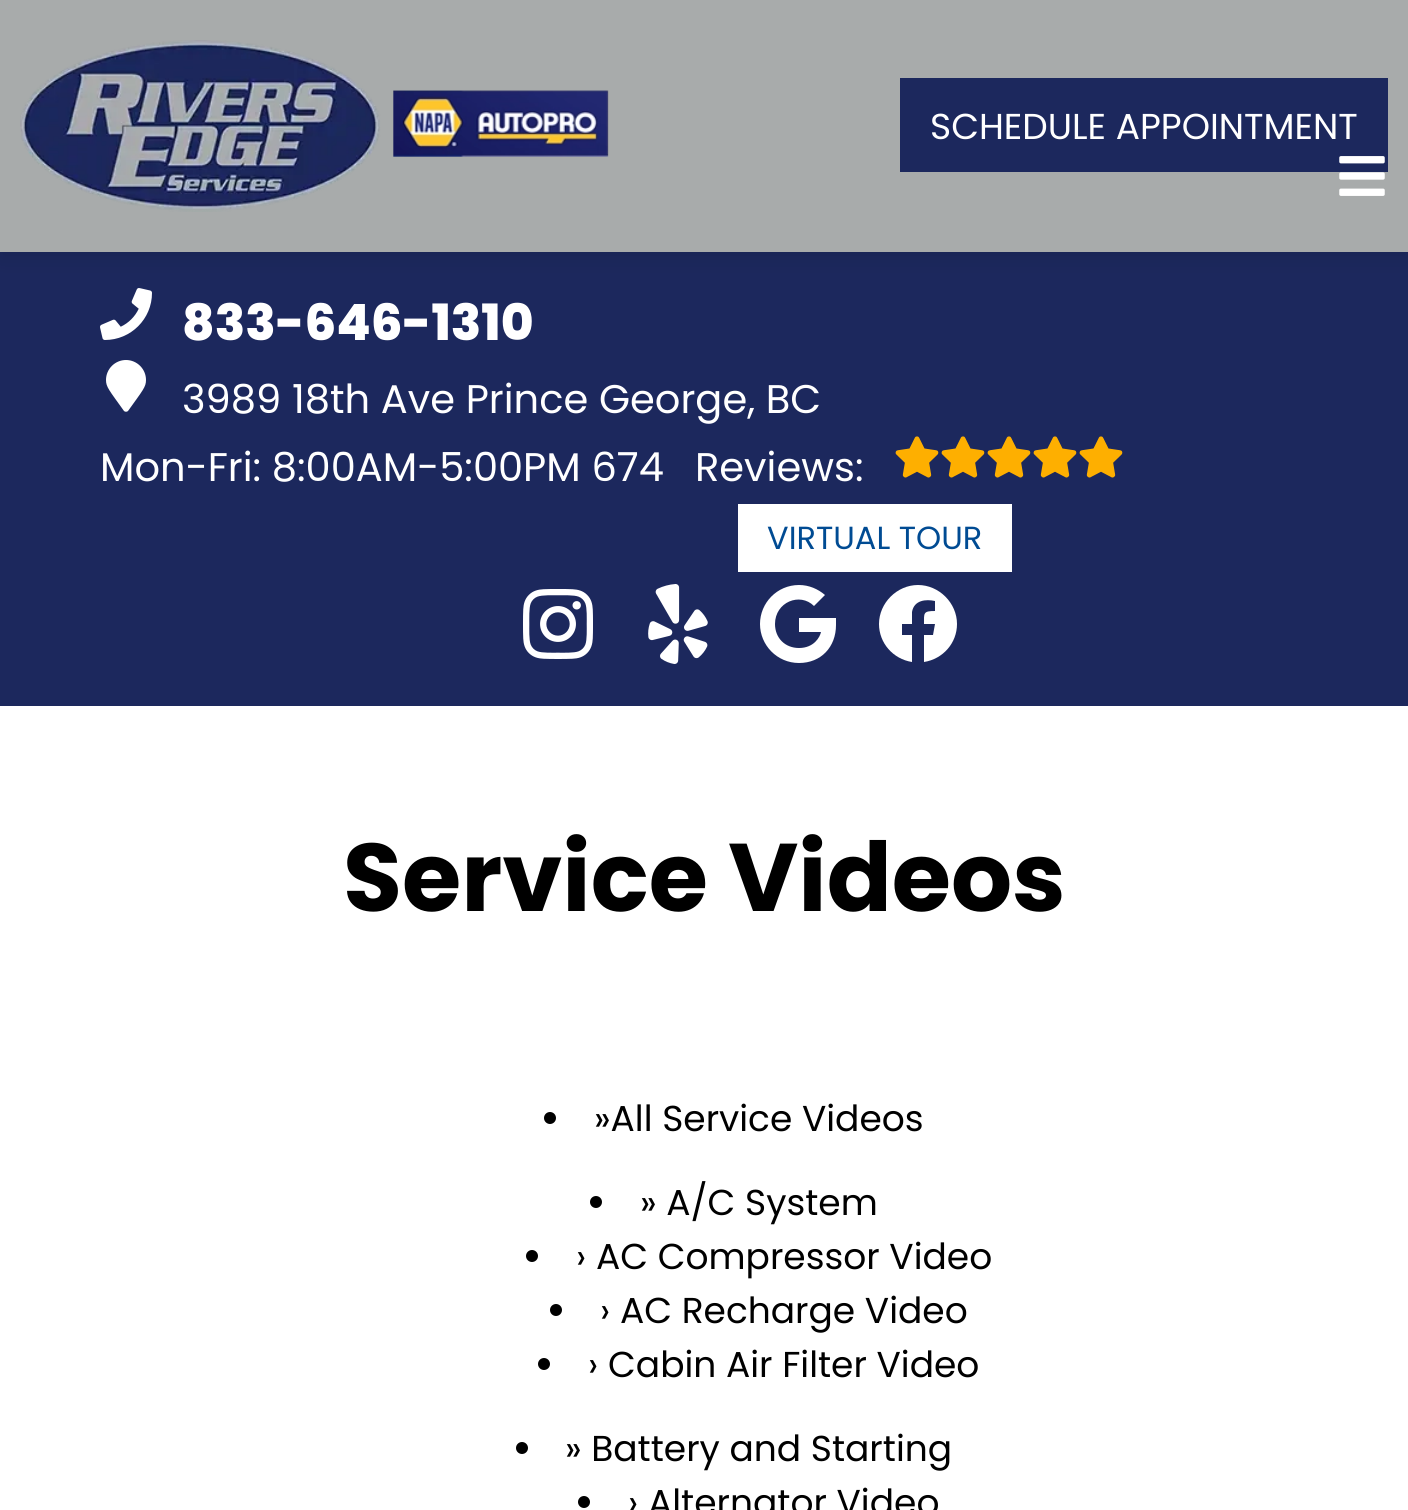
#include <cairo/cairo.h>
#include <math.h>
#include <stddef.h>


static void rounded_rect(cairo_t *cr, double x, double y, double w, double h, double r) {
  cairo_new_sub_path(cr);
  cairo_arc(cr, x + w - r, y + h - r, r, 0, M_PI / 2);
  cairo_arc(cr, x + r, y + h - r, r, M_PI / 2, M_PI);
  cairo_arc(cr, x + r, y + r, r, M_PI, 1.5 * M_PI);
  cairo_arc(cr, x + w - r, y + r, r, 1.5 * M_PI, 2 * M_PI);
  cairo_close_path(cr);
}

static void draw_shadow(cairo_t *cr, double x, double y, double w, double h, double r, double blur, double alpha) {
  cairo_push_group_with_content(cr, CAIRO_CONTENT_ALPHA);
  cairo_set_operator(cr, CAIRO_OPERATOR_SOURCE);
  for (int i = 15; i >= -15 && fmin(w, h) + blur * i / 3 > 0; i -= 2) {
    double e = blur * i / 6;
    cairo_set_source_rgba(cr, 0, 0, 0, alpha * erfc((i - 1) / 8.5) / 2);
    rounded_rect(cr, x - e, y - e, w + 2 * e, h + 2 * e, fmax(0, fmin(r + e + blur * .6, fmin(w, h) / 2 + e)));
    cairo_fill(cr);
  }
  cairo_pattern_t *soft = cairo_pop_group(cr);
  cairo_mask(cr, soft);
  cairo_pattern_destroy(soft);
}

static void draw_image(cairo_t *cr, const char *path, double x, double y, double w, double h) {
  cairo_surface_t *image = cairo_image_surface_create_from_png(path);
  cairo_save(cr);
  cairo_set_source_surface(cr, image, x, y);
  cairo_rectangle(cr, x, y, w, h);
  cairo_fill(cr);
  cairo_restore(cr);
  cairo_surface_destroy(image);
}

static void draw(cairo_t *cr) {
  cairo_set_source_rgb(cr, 1, 1, 1);
  cairo_paint(cr);
  cairo_set_source_rgb(cr, 28 / 255.0, 40 / 255.0, 93 / 255.0);
  cairo_rectangle(cr, 0, 252, 1408, 454);
  cairo_fill(cr);
  cairo_set_source_rgb(cr, 0, 0, 0);
  draw_shadow(cr, 0, 6, 1408, 252, 0, 10, 0.1);
  cairo_set_source_rgb(cr, 168 / 255.0, 171 / 255.0, 171 / 255.0);
  cairo_rectangle(cr, 0, 0, 1408, 252);
  cairo_fill(cr);
  draw_image(cr, "images/1.png", 20, 40, 589, 172);
  cairo_set_source_rgb(cr, 28 / 255.0, 40 / 255.0, 93 / 255.0);
  cairo_rectangle(cr, 900, 78, 488, 94);
  cairo_fill(cr);
  draw_image(cr, "images/2.png", 1339, 156, 46, 40);
  draw_image(cr, "images/3.png", 100, 288, 52, 52);
  cairo_set_source_rgb(cr, 1, 1, 1);
  cairo_new_path(cr);
  cairo_move_to(cr, 124, 411);
  cairo_curve_to(cr, 109, 390, 106, 387, 106, 380);
  cairo_curve_to(cr, 106, 369, 115, 360, 126, 360);
  cairo_curve_to(cr, 137, 360, 146, 369, 146, 380);
  cairo_curve_to(cr, 146, 387, 143, 390, 128, 411);
  cairo_curve_to(cr, 127, 412, 125, 412, 124, 411);
  cairo_close_path(cr);
  cairo_fill(cr);
  draw_image(cr, "images/4.png", 895, 436, 228, 42);
  cairo_rectangle(cr, 738, 504, 274, 68);
  cairo_fill(cr);
  draw_image(cr, "images/5.png", 523, 589, 70, 70);
  draw_image(cr, "images/6.png", 648, 584, 60, 80);
  cairo_new_path(cr);
  cairo_move_to(cr, 836, 625);
  cairo_curve_to(cr, 836, 647, 821, 663, 799, 663);
  cairo_curve_to(cr, 777, 663, 760, 645, 760, 624);
  cairo_curve_to(cr, 760, 603, 777, 585, 799, 585);
  cairo_curve_to(cr, 809, 585, 818, 589, 825, 595);
  cairo_line_to(cr, 814, 606);
  cairo_curve_to(cr, 800, 592, 775, 602, 775, 624);
  cairo_curve_to(cr, 775, 638, 785, 648, 799, 648);
  cairo_curve_to(cr, 814, 648, 820, 637, 821, 632);
  cairo_line_to(cr, 799, 632);
  cairo_line_to(cr, 799, 618);
  cairo_line_to(cr, 836, 618);
  cairo_close_path(cr);
  cairo_fill(cr);
  cairo_new_path(cr);
  cairo_move_to(cr, 957, 624);
  cairo_curve_to(cr, 957, 603, 939, 585, 918, 585);
  cairo_curve_to(cr, 897, 585, 879, 603, 879, 624);
  cairo_curve_to(cr, 879, 643, 893, 659, 912, 662);
  cairo_line_to(cr, 912, 635);
  cairo_line_to(cr, 902, 635);
  cairo_line_to(cr, 902, 624);
  cairo_line_to(cr, 912, 624);
  cairo_line_to(cr, 912, 612);
  cairo_curve_to(cr, 914, 600, 926, 599, 935, 601);
  cairo_line_to(cr, 935, 611);
  cairo_curve_to(cr, 923, 611, 924, 613, 924, 624);
  cairo_line_to(cr, 935, 624);
  cairo_line_to(cr, 933, 635);
  cairo_line_to(cr, 924, 635);
  cairo_line_to(cr, 924, 662);
  cairo_curve_to(cr, 943, 659, 957, 643, 957, 624);
  cairo_close_path(cr);
  cairo_fill(cr);
  cairo_set_source_rgb(cr, 0, 0, 0);
  cairo_arc(cr, 550, 1118, 6, 0, 2 * M_PI);
  cairo_fill(cr);
  cairo_arc(cr, 596, 1202, 6, 0, 2 * M_PI);
  cairo_fill(cr);
  cairo_arc(cr, 532, 1256, 6, 0, 2 * M_PI);
  cairo_fill(cr);
  cairo_arc(cr, 556, 1310, 6, 0, 2 * M_PI);
  cairo_fill(cr);
  cairo_arc(cr, 544, 1364, 6, 0, 2 * M_PI);
  cairo_fill(cr);
  cairo_arc(cr, 522, 1448, 6, 0, 2 * M_PI);
  cairo_fill(cr);
  cairo_arc(cr, 584, 1502, 6, 0, 2 * M_PI);
  cairo_fill(cr);
  cairo_select_font_face(cr, "Poppins", CAIRO_FONT_SLANT_NORMAL, CAIRO_FONT_WEIGHT_NORMAL);
  cairo_set_font_size(cr, 36);
  cairo_set_source_rgb(cr, 1, 1, 1);
  cairo_move_to(cr, 930, 139);
  cairo_show_text(cr, "SCHEDULE APPOINTMENT");
  cairo_select_font_face(cr, "Poppins ExtraBold", CAIRO_FONT_SLANT_NORMAL, CAIRO_FONT_WEIGHT_NORMAL);
  cairo_set_font_size(cr, 50);
  cairo_move_to(cr, 182, 340);
  cairo_show_text(cr, "833-646-1310");
  cairo_select_font_face(cr, "Poppins", CAIRO_FONT_SLANT_NORMAL, CAIRO_FONT_WEIGHT_NORMAL);
  cairo_set_font_size(cr, 40);
  cairo_move_to(cr, 182, 413);
  cairo_show_text(cr, "3989 18th Ave Prince George, BC");
  cairo_move_to(cr, 100, 481);
  cairo_show_text(cr, "Mon-Fri: 8:00AM-5:00PM 674");
  cairo_move_to(cr, 695, 481);
  cairo_show_text(cr, "Reviews:");
  cairo_set_font_size(cr, 32);
  cairo_set_source_rgb(cr, 0, 75 / 255.0, 147 / 255.0);
  cairo_move_to(cr, 767, 549);
  cairo_show_text(cr, "VIRTUAL TOUR");
  cairo_select_font_face(cr, "Poppins", CAIRO_FONT_SLANT_NORMAL, CAIRO_FONT_WEIGHT_BOLD);
  cairo_set_font_size(cr, 96);
  cairo_set_source_rgb(cr, 0, 0, 0);
  cairo_move_to(cr, 343, 911);
  cairo_show_text(cr, "Service Videos");
  cairo_select_font_face(cr, "Poppins", CAIRO_FONT_SLANT_NORMAL, CAIRO_FONT_WEIGHT_NORMAL);
  cairo_set_font_size(cr, 36);
  cairo_move_to(cr, 594, 1131);
  cairo_show_text(cr, "»All Service Videos");
  cairo_move_to(cr, 640, 1215);
  cairo_show_text(cr, "» A/C System");
  cairo_move_to(cr, 576, 1269);
  cairo_show_text(cr, "›");
  cairo_move_to(cr, 596, 1269);
  cairo_show_text(cr, "AC Compressor Video");
  cairo_move_to(cr, 600, 1323);
  cairo_show_text(cr, "›");
  cairo_move_to(cr, 620, 1323);
  cairo_show_text(cr, "AC Recharge Video");
  cairo_move_to(cr, 588, 1377);
  cairo_show_text(cr, "›");
  cairo_move_to(cr, 608, 1377);
  cairo_show_text(cr, "Cabin Air Filter Video");
  cairo_move_to(cr, 565, 1461);
  cairo_show_text(cr, "» Battery and Starting");
  cairo_move_to(cr, 628, 1515);
  cairo_show_text(cr, "›");
  cairo_move_to(cr, 648, 1515);
  cairo_show_text(cr, "Alternator Video");
}

int main(void) {
  cairo_surface_t *surface = cairo_image_surface_create(CAIRO_FORMAT_RGB24, 1408, 1510);
  cairo_t *cr = cairo_create(surface);
  cairo_font_options_t *options = cairo_font_options_create();
  cairo_font_options_set_hint_metrics(options, CAIRO_HINT_METRICS_OFF);
  cairo_font_options_set_hint_style(options, CAIRO_HINT_STYLE_NONE);
  cairo_set_font_options(cr, options);
  cairo_set_miter_limit(cr, 4);
  draw(cr);
  cairo_surface_write_to_png(surface, "out.png");
  cairo_font_options_destroy(options);
  cairo_destroy(cr);
  cairo_surface_destroy(surface);
  return 0;
}
